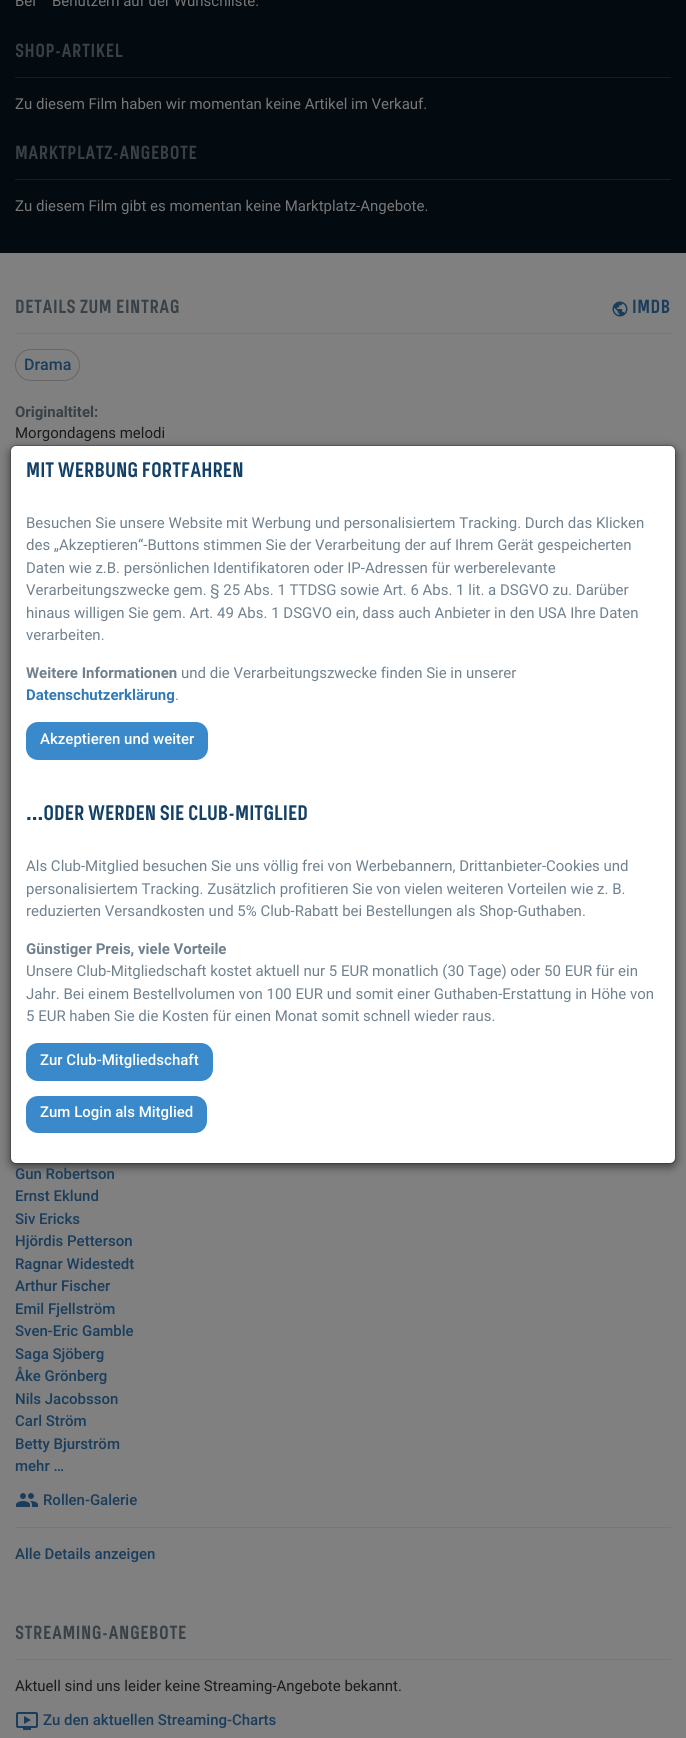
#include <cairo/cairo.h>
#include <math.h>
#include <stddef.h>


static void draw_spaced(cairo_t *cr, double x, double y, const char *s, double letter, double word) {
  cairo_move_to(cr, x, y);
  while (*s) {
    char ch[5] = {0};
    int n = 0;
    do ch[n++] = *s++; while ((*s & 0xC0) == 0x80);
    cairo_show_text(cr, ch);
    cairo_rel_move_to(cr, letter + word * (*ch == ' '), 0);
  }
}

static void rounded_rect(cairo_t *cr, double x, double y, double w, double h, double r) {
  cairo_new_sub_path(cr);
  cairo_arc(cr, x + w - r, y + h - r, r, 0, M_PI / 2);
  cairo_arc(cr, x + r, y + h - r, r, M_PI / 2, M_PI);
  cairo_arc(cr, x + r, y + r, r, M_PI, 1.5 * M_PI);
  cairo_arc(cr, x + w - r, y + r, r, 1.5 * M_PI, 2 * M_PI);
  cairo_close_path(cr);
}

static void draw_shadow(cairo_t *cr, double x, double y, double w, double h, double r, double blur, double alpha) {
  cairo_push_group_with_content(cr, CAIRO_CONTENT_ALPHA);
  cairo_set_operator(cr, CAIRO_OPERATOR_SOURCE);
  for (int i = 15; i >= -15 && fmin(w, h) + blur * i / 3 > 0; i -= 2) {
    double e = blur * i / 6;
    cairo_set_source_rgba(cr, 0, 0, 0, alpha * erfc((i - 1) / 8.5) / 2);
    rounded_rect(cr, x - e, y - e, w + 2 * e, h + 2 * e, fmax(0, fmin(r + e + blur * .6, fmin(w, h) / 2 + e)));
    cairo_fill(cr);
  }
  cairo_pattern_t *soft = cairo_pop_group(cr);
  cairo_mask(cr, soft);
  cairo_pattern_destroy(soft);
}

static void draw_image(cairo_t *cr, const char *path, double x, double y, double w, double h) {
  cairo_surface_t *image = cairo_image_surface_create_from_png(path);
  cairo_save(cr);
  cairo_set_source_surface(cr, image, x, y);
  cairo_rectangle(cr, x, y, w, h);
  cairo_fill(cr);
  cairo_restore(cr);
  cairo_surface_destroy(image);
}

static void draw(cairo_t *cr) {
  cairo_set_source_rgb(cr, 128 / 255.0, 128 / 255.0, 128 / 255.0);
  cairo_paint(cr);
  cairo_set_source_rgb(cr, 3 / 255.0, 10 / 255.0, 16 / 255.0);
  cairo_rectangle(cr, 0, 0, 686, 253);
  cairo_fill(cr);
  cairo_set_source_rgb(cr, 10 / 255.0, 32 / 255.0, 51 / 255.0);
  cairo_rectangle(cr, 15, 77, 656, 1);
  cairo_fill(cr);
  cairo_rectangle(cr, 15, 179, 656, 1);
  cairo_fill(cr);
  draw_image(cr, "images/1.png", 612, 301, 16, 16);
  cairo_set_source_rgb(cr, 119 / 255.0, 119 / 255.0, 119 / 255.0);
  cairo_rectangle(cr, 15, 333, 656, 1);
  cairo_fill(cr);
  rounded_rect(cr, 15.5, 349.5, 64, 31, 15.5);
  cairo_set_source_rgb(cr, 102 / 255.0, 102 / 255.0, 102 / 255.0);
  cairo_set_line_width(cr, 1);
  cairo_stroke(cr);
  draw_image(cr, "images/2.png", 16, 1493, 22, 14);
  cairo_set_source_rgb(cr, 119 / 255.0, 119 / 255.0, 119 / 255.0);
  cairo_rectangle(cr, 15, 1527, 656, 1);
  cairo_fill(cr);
  cairo_rectangle(cr, 15, 1659, 656, 1);
  cairo_fill(cr);
  draw_image(cr, "images/3.png", 16, 1712, 22, 18);
  cairo_set_source_rgb(cr, 0, 0, 0);
  draw_shadow(cr, 10, 448, 666, 719, 6, 4.5, 0.5);
  cairo_set_source_rgb(cr, 1, 1, 1);
  rounded_rect(cr, 11, 446, 664, 717, 5);
  cairo_fill(cr);
  rounded_rect(cr, 10.5, 445.5, 665, 718, 5.5);
  cairo_set_source_rgba(cr, 0, 0, 0, 0.2);
  cairo_stroke(cr);
  cairo_set_source_rgb(cr, 57 / 255.0, 137 / 255.0, 203 / 255.0);
  rounded_rect(cr, 26, 722, 182, 38, 12);
  cairo_fill(cr);
  rounded_rect(cr, 26, 1043, 187, 38, 12);
  cairo_fill(cr);
  rounded_rect(cr, 26, 1096, 181, 37, 12);
  cairo_fill(cr);
  cairo_select_font_face(cr, "Roboto", CAIRO_FONT_SLANT_NORMAL, CAIRO_FONT_WEIGHT_NORMAL);
  cairo_set_font_size(cr, 15);
  cairo_set_source_rgb(cr, 120 / 255.0, 120 / 255.0, 120 / 255.0);
  cairo_move_to(cr, 15, 6);
  cairo_show_text(cr, "Bei");
  cairo_move_to(cr, 52, 6);
  cairo_show_text(cr, "Benutzern auf der Wunschliste.");
  cairo_select_font_face(cr, "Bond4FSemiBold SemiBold", CAIRO_FONT_SLANT_NORMAL, CAIRO_FONT_WEIGHT_NORMAL);
  cairo_set_font_size(cr, 19);
  cairo_set_source_rgb(cr, 56 / 255.0, 65 / 255.0, 71 / 255.0);
  draw_spaced(cr, 15, 57, "SHOP-ARTIKEL", 0.5, 0);
  cairo_select_font_face(cr, "Roboto", CAIRO_FONT_SLANT_NORMAL, CAIRO_FONT_WEIGHT_NORMAL);
  cairo_set_font_size(cr, 15);
  cairo_set_source_rgb(cr, 120 / 255.0, 120 / 255.0, 120 / 255.0);
  cairo_move_to(cr, 15, 109);
  cairo_show_text(cr, "Zu diesem Film haben wir momentan keine Artikel im Verkauf.");
  cairo_select_font_face(cr, "Bond4FSemiBold SemiBold", CAIRO_FONT_SLANT_NORMAL, CAIRO_FONT_WEIGHT_NORMAL);
  cairo_set_font_size(cr, 19);
  cairo_set_source_rgb(cr, 56 / 255.0, 65 / 255.0, 71 / 255.0);
  draw_spaced(cr, 15, 159, "MARKTPLATZ-ANGEBOTE", 0.5, 0);
  cairo_select_font_face(cr, "Roboto", CAIRO_FONT_SLANT_NORMAL, CAIRO_FONT_WEIGHT_NORMAL);
  cairo_set_font_size(cr, 15);
  cairo_set_source_rgb(cr, 120 / 255.0, 120 / 255.0, 120 / 255.0);
  cairo_move_to(cr, 15, 211);
  cairo_show_text(cr, "Zu diesem Film gibt es momentan keine Marktplatz-Angebote.");
  cairo_select_font_face(cr, "Bond4FSemiBold SemiBold", CAIRO_FONT_SLANT_NORMAL, CAIRO_FONT_WEIGHT_NORMAL);
  cairo_set_font_size(cr, 19);
  cairo_set_source_rgb(cr, 56 / 255.0, 65 / 255.0, 71 / 255.0);
  draw_spaced(cr, 15, 313, "DETAILS ZUM EINTRAG", 0.5, 0);
  cairo_set_source_rgb(cr, 26 / 255.0, 61 / 255.0, 92 / 255.0);
  draw_spaced(cr, 632, 313, "IMDB", 0.5, 0);
  cairo_select_font_face(cr, "Roboto Medium", CAIRO_FONT_SLANT_NORMAL, CAIRO_FONT_WEIGHT_NORMAL);
  cairo_set_font_size(cr, 16);
  cairo_move_to(cr, 24, 370);
  cairo_show_text(cr, "Drama");
  cairo_select_font_face(cr, "Roboto", CAIRO_FONT_SLANT_NORMAL, CAIRO_FONT_WEIGHT_BOLD);
  cairo_set_font_size(cr, 15);
  cairo_set_source_rgb(cr, 56 / 255.0, 65 / 255.0, 71 / 255.0);
  cairo_move_to(cr, 15, 417);
  cairo_show_text(cr, "Originaltitel:");
  cairo_select_font_face(cr, "Roboto", CAIRO_FONT_SLANT_NORMAL, CAIRO_FONT_WEIGHT_NORMAL);
  cairo_set_source_rgb(cr, 26 / 255.0, 26 / 255.0, 26 / 255.0);
  cairo_move_to(cr, 15, 438);
  cairo_show_text(cr, "Morgondagens melodi");
  cairo_select_font_face(cr, "Roboto Medium", CAIRO_FONT_SLANT_NORMAL, CAIRO_FONT_WEIGHT_NORMAL);
  cairo_set_source_rgb(cr, 26 / 255.0, 61 / 255.0, 92 / 255.0);
  cairo_move_to(cr, 15, 1179);
  cairo_show_text(cr, "Gun Robertson");
  cairo_move_to(cr, 15, 1201);
  cairo_show_text(cr, "Ernst Eklund");
  cairo_move_to(cr, 15, 1224);
  cairo_show_text(cr, "Siv Ericks");
  cairo_move_to(cr, 15, 1246);
  cairo_show_text(cr, "Hjördis Petterson");
  cairo_move_to(cr, 15, 1269);
  cairo_show_text(cr, "Ragnar Widestedt");
  cairo_move_to(cr, 15, 1291);
  cairo_show_text(cr, "Arthur Fischer");
  cairo_move_to(cr, 15, 1314);
  cairo_show_text(cr, "Emil Fjellström");
  cairo_move_to(cr, 15, 1336);
  cairo_show_text(cr, "Sven-Eric Gamble");
  cairo_move_to(cr, 15, 1359);
  cairo_show_text(cr, "Saga Sjöberg");
  cairo_move_to(cr, 15, 1381);
  cairo_show_text(cr, "Åke Grönberg");
  cairo_move_to(cr, 15, 1404);
  cairo_show_text(cr, "Nils Jacobsson");
  cairo_move_to(cr, 15, 1426);
  cairo_show_text(cr, "Carl Ström");
  cairo_move_to(cr, 15, 1449);
  cairo_show_text(cr, "Betty Bjurström");
  cairo_move_to(cr, 15, 1471);
  cairo_show_text(cr, "mehr …");
  cairo_move_to(cr, 43, 1505);
  cairo_show_text(cr, "Rollen-Galerie");
  cairo_move_to(cr, 15, 1559);
  cairo_show_text(cr, "Alle Details anzeigen");
  cairo_select_font_face(cr, "Bond4FSemiBold SemiBold", CAIRO_FONT_SLANT_NORMAL, CAIRO_FONT_WEIGHT_NORMAL);
  cairo_set_font_size(cr, 19);
  cairo_set_source_rgb(cr, 56 / 255.0, 65 / 255.0, 71 / 255.0);
  draw_spaced(cr, 15, 1639, "STREAMING-ANGEBOTE", 0.5, 0);
  cairo_select_font_face(cr, "Roboto", CAIRO_FONT_SLANT_NORMAL, CAIRO_FONT_WEIGHT_NORMAL);
  cairo_set_font_size(cr, 15);
  cairo_set_source_rgb(cr, 26 / 255.0, 26 / 255.0, 26 / 255.0);
  cairo_move_to(cr, 15, 1691);
  cairo_show_text(cr, "Aktuell sind uns leider keine Streaming-Angebote bekannt.");
  cairo_select_font_face(cr, "Roboto Medium", CAIRO_FONT_SLANT_NORMAL, CAIRO_FONT_WEIGHT_NORMAL);
  cairo_set_source_rgb(cr, 26 / 255.0, 61 / 255.0, 92 / 255.0);
  cairo_move_to(cr, 43, 1725);
  cairo_show_text(cr, "Zu den aktuellen Streaming-Charts");
  cairo_select_font_face(cr, "Bond4FSemiBold SemiBold", CAIRO_FONT_SLANT_NORMAL, CAIRO_FONT_WEIGHT_NORMAL);
  cairo_set_font_size(cr, 21);
  cairo_set_source_rgb(cr, 19 / 255.0, 64 / 255.0, 102 / 255.0);
  cairo_move_to(cr, 26, 477);
  cairo_show_text(cr, "MIT WERBUNG FORTFAHREN");
  cairo_select_font_face(cr, "Roboto", CAIRO_FONT_SLANT_NORMAL, CAIRO_FONT_WEIGHT_NORMAL);
  cairo_set_font_size(cr, 15);
  cairo_set_source_rgb(cr, 112 / 255.0, 129 / 255.0, 142 / 255.0);
  cairo_move_to(cr, 26, 528);
  cairo_show_text(cr, "Besuchen Sie unsere Website mit Werbung und personalisiertem Tracking. Durch das Klicken");
  cairo_move_to(cr, 26, 550);
  cairo_show_text(cr, "des „Akzeptieren“-Buttons stimmen Sie der Verarbeitung der auf Ihrem Gerät gespeicherten");
  cairo_move_to(cr, 26, 573);
  cairo_show_text(cr, "Daten wie z.B. persönlichen Identifikatoren oder IP-Adressen für werberelevante");
  cairo_move_to(cr, 26, 595);
  cairo_show_text(cr, "Verarbeitungszwecke gem. § 25 Abs. 1 TTDSG sowie Art. 6 Abs. 1 lit. a DSGVO zu. Darüber");
  cairo_move_to(cr, 26, 618);
  cairo_show_text(cr, "hinaus willigen Sie gem. Art. 49 Abs. 1 DSGVO ein, dass auch Anbieter in den USA Ihre Daten");
  cairo_move_to(cr, 26, 640);
  cairo_show_text(cr, "verarbeiten.");
  cairo_select_font_face(cr, "Roboto", CAIRO_FONT_SLANT_NORMAL, CAIRO_FONT_WEIGHT_BOLD);
  cairo_move_to(cr, 26, 678);
  cairo_show_text(cr, "Weitere Informationen");
  cairo_select_font_face(cr, "Roboto", CAIRO_FONT_SLANT_NORMAL, CAIRO_FONT_WEIGHT_NORMAL);
  cairo_move_to(cr, 181, 678);
  cairo_show_text(cr, "und die Verarbeitungszwecke finden Sie in unserer");
  cairo_select_font_face(cr, "Roboto", CAIRO_FONT_SLANT_NORMAL, CAIRO_FONT_WEIGHT_BOLD);
  cairo_set_source_rgb(cr, 51 / 255.0, 122 / 255.0, 183 / 255.0);
  cairo_move_to(cr, 26, 700);
  cairo_show_text(cr, "Datenschutzerklärung");
  cairo_select_font_face(cr, "Roboto", CAIRO_FONT_SLANT_NORMAL, CAIRO_FONT_WEIGHT_NORMAL);
  cairo_set_source_rgb(cr, 112 / 255.0, 129 / 255.0, 142 / 255.0);
  cairo_move_to(cr, 175, 700);
  cairo_show_text(cr, ".");
  cairo_select_font_face(cr, "Roboto Medium", CAIRO_FONT_SLANT_NORMAL, CAIRO_FONT_WEIGHT_NORMAL);
  cairo_set_source_rgb(cr, 1, 1, 1);
  cairo_move_to(cr, 40, 744);
  cairo_show_text(cr, "Akzeptieren und weiter");
  cairo_select_font_face(cr, "Bond4FSemiBold SemiBold", CAIRO_FONT_SLANT_NORMAL, CAIRO_FONT_WEIGHT_NORMAL);
  cairo_set_font_size(cr, 21);
  cairo_set_source_rgb(cr, 19 / 255.0, 64 / 255.0, 102 / 255.0);
  cairo_move_to(cr, 26, 820);
  cairo_show_text(cr, "...ODER WERDEN SIE CLUB-MITGLIED");
  cairo_select_font_face(cr, "Roboto", CAIRO_FONT_SLANT_NORMAL, CAIRO_FONT_WEIGHT_NORMAL);
  cairo_set_font_size(cr, 15);
  cairo_set_source_rgb(cr, 112 / 255.0, 129 / 255.0, 142 / 255.0);
  cairo_move_to(cr, 26, 871);
  cairo_show_text(cr, "Als Club-Mitglied besuchen Sie uns völlig frei von Werbebannern, Drittanbieter-Cookies und");
  cairo_move_to(cr, 26, 894);
  cairo_show_text(cr, "personalisiertem Tracking. Zusätzlich profitieren Sie von vielen weiteren Vorteilen wie z. B.");
  cairo_move_to(cr, 26, 916);
  cairo_show_text(cr, "reduzierten Versandkosten und 5% Club-Rabatt bei Bestellungen als Shop-Guthaben.");
  cairo_select_font_face(cr, "Roboto", CAIRO_FONT_SLANT_NORMAL, CAIRO_FONT_WEIGHT_BOLD);
  cairo_move_to(cr, 26, 954);
  cairo_show_text(cr, "Günstiger Preis, viele Vorteile");
  cairo_select_font_face(cr, "Roboto", CAIRO_FONT_SLANT_NORMAL, CAIRO_FONT_WEIGHT_NORMAL);
  cairo_move_to(cr, 26, 976);
  cairo_show_text(cr, "Unsere Club-Mitgliedschaft kostet aktuell nur 5 EUR monatlich (30 Tage) oder 50 EUR für ein");
  cairo_move_to(cr, 26, 999);
  cairo_show_text(cr, "Jahr. Bei einem Bestellvolumen von 100 EUR und somit einer Guthaben-Erstattung in Höhe von");
  cairo_move_to(cr, 26, 1021);
  cairo_show_text(cr, "5 EUR haben Sie die Kosten für einen Monat somit schnell wieder raus.");
  cairo_select_font_face(cr, "Roboto Medium", CAIRO_FONT_SLANT_NORMAL, CAIRO_FONT_WEIGHT_NORMAL);
  cairo_set_source_rgb(cr, 1, 1, 1);
  cairo_move_to(cr, 40, 1065);
  cairo_show_text(cr, "Zur Club-Mitgliedschaft");
  cairo_move_to(cr, 40, 1117);
  cairo_show_text(cr, "Zum Login als Mitglied");
}

int main(void) {
  cairo_surface_t *surface = cairo_image_surface_create(CAIRO_FORMAT_RGB24, 686, 1738);
  cairo_t *cr = cairo_create(surface);
  cairo_font_options_t *options = cairo_font_options_create();
  cairo_font_options_set_hint_metrics(options, CAIRO_HINT_METRICS_OFF);
  cairo_font_options_set_hint_style(options, CAIRO_HINT_STYLE_NONE);
  cairo_set_font_options(cr, options);
  cairo_set_miter_limit(cr, 4);
  draw(cr);
  cairo_surface_write_to_png(surface, "out.png");
  cairo_font_options_destroy(options);
  cairo_destroy(cr);
  cairo_surface_destroy(surface);
  return 0;
}
